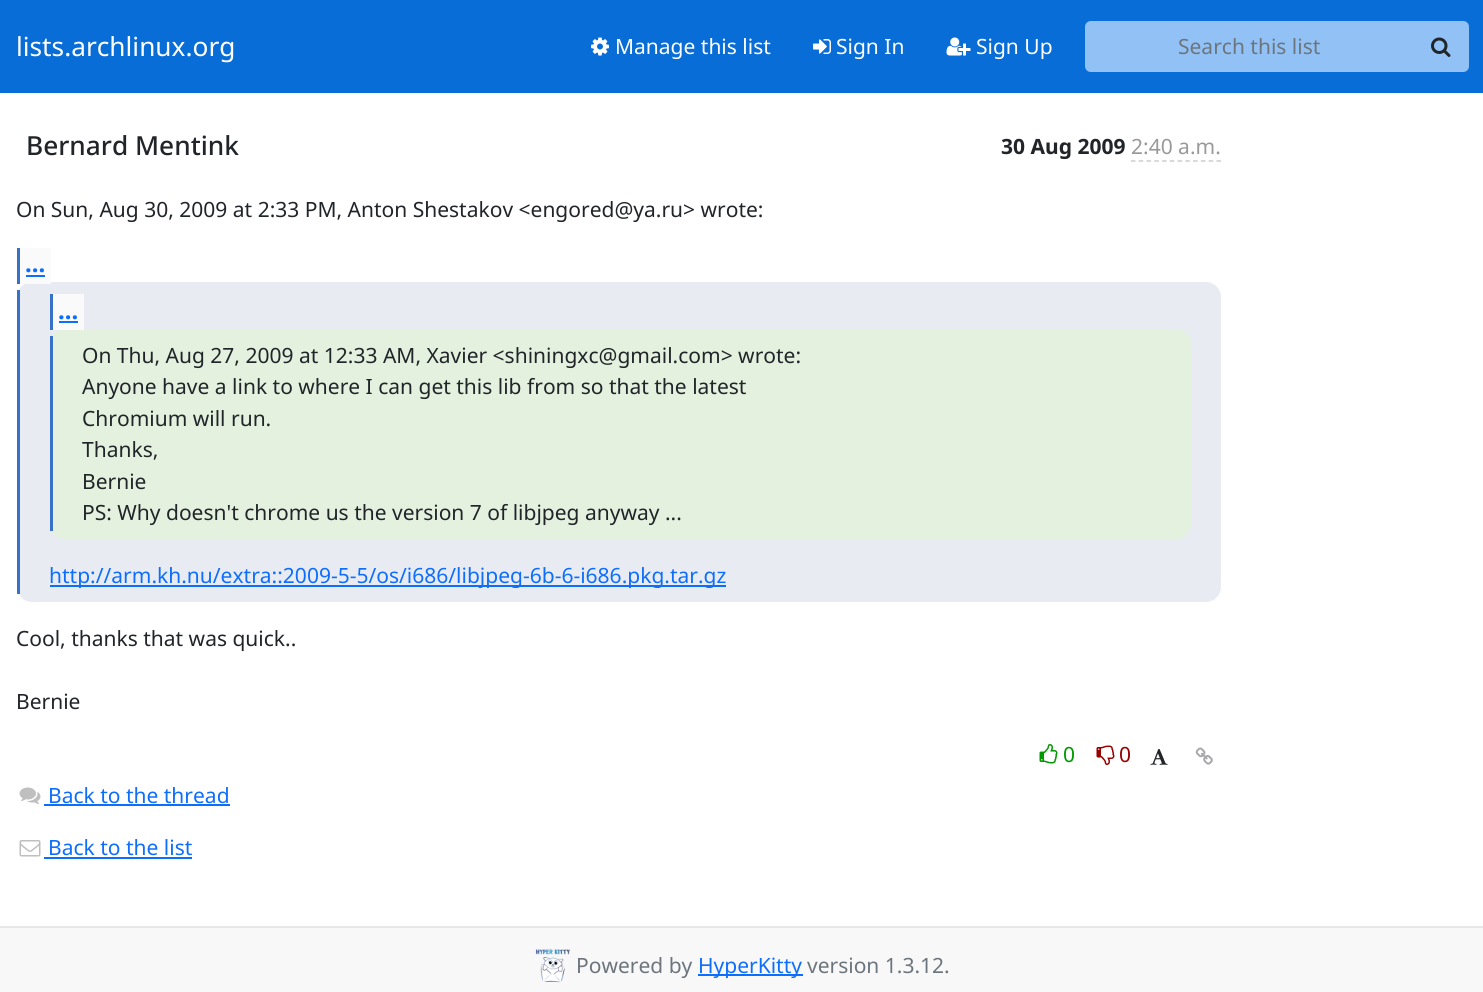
#include <cairo/cairo.h>
#include <math.h>
#include <stddef.h>


static void rounded_rect(cairo_t *cr, double x, double y, double w, double h, double r) {
  cairo_new_sub_path(cr);
  cairo_arc(cr, x + w - r, y + h - r, r, 0, M_PI / 2);
  cairo_arc(cr, x + r, y + h - r, r, M_PI / 2, M_PI);
  cairo_arc(cr, x + r, y + r, r, M_PI, 1.5 * M_PI);
  cairo_arc(cr, x + w - r, y + r, r, 1.5 * M_PI, 2 * M_PI);
  cairo_close_path(cr);
}

static void draw_image(cairo_t *cr, const char *path, double x, double y, double w, double h) {
  cairo_surface_t *image = cairo_image_surface_create_from_png(path);
  cairo_save(cr);
  cairo_set_source_surface(cr, image, x, y);
  cairo_rectangle(cr, x, y, w, h);
  cairo_fill(cr);
  cairo_restore(cr);
  cairo_surface_destroy(image);
}

static void draw(cairo_t *cr) {
  cairo_set_source_rgb(cr, 1, 1, 1);
  cairo_paint(cr);
  cairo_set_source_rgb(cr, 8 / 255.0, 109 / 255.0, 215 / 255.0);
  cairo_rectangle(cr, 0, 0, 1483, 93);
  cairo_fill(cr);
  draw_image(cr, "images/1.png", 591, 37, 18, 19);
  draw_image(cr, "images/2.png", 813, 39, 18, 15);
  draw_image(cr, "images/3.png", 946, 37, 25, 19);
  cairo_set_source_rgb(cr, 146 / 255.0, 194 / 255.0, 245 / 255.0);
  cairo_new_path(cr);
  cairo_move_to(cr, 1091, 21);
  cairo_line_to(cr, 1416, 21);
  cairo_line_to(cr, 1416, 72);
  cairo_line_to(cr, 1091, 72);
  cairo_curve_to(cr, 1087.5, 72, 1085, 69.5, 1085, 66);
  cairo_line_to(cr, 1085, 27);
  cairo_curve_to(cr, 1085, 23.5, 1087.5, 21, 1091, 21);
  cairo_close_path(cr);
  cairo_fill(cr);
  cairo_new_path(cr);
  cairo_move_to(cr, 1415, 21);
  cairo_line_to(cr, 1463, 21);
  cairo_curve_to(cr, 1466.5, 21, 1469, 23.5, 1469, 27);
  cairo_line_to(cr, 1469, 66);
  cairo_curve_to(cr, 1469, 69.5, 1466.5, 72, 1463, 72);
  cairo_line_to(cr, 1415, 72);
  cairo_close_path(cr);
  cairo_fill(cr);
  draw_image(cr, "images/4.png", 1431, 37, 20, 20);
  cairo_new_path(cr);
  cairo_move_to(cr, 1131, 161);
  cairo_line_to(cr, 1221, 161);
  cairo_set_source_rgb(cr, 204 / 255.0, 204 / 255.0, 204 / 255.0);
  cairo_set_line_width(cr, 1.5);
  cairo_set_dash(cr, (double[]){4.5, 3.27}, 2, 0);
  cairo_stroke(cr);
  cairo_set_source_rgb(cr, 232 / 255.0, 236 / 255.0, 242 / 255.0);
  rounded_rect(cr, 17, 282, 1204, 320, 15);
  cairo_fill(cr);
  cairo_set_source_rgb(cr, 250 / 255.0, 250 / 255.0, 250 / 255.0);
  cairo_rectangle(cr, 20, 248, 31, 36);
  cairo_fill(cr);
  cairo_set_source_rgb(cr, 55 / 255.0, 113 / 255.0, 200 / 255.0);
  cairo_rectangle(cr, 17, 248, 3, 36);
  cairo_fill(cr);
  cairo_set_source_rgb(cr, 13 / 255.0, 110 / 255.0, 253 / 255.0);
  cairo_rectangle(cr, 26, 275, 19, 2);
  cairo_fill(cr);
  cairo_set_source_rgb(cr, 55 / 255.0, 113 / 255.0, 200 / 255.0);
  cairo_rectangle(cr, 17, 290, 3, 304);
  cairo_fill(cr);
  cairo_set_source_rgb(cr, 228 / 255.0, 241 / 255.0, 223 / 255.0);
  rounded_rect(cr, 50, 329, 1141, 210, 15);
  cairo_fill(cr);
  cairo_set_source_rgb(cr, 250 / 255.0, 250 / 255.0, 250 / 255.0);
  cairo_rectangle(cr, 53, 294, 31, 36);
  cairo_fill(cr);
  cairo_set_source_rgb(cr, 55 / 255.0, 113 / 255.0, 200 / 255.0);
  cairo_rectangle(cr, 50, 294, 3, 36);
  cairo_fill(cr);
  cairo_set_source_rgb(cr, 13 / 255.0, 110 / 255.0, 253 / 255.0);
  cairo_rectangle(cr, 59, 321, 19, 2);
  cairo_fill(cr);
  cairo_set_source_rgb(cr, 55 / 255.0, 113 / 255.0, 200 / 255.0);
  cairo_rectangle(cr, 50, 336, 3, 195);
  cairo_fill(cr);
  cairo_set_source_rgb(cr, 13 / 255.0, 110 / 255.0, 253 / 255.0);
  cairo_rectangle(cr, 50, 585, 676, 2);
  cairo_fill(cr);
  draw_image(cr, "images/5.png", 1039, 744, 19, 20);
  draw_image(cr, "images/6.png", 1096, 745, 19, 20);
  draw_image(cr, "images/7.png", 1150, 749, 18, 16);
  draw_image(cr, "images/8.png", 1195, 747, 18, 18);
  draw_image(cr, "images/9.png", 19, 787, 22, 17);
  cairo_rectangle(cr, 44, 804, 186, 2);
  cairo_fill(cr);
  draw_image(cr, "images/10.png", 19, 840, 22, 17);
  cairo_rectangle(cr, 44, 857, 148, 2);
  cairo_fill(cr);
  cairo_set_source_rgb(cr, 248 / 255.0, 248 / 255.0, 248 / 255.0);
  cairo_rectangle(cr, 0, 928, 1483, 64);
  cairo_fill(cr);
  cairo_set_source_rgb(cr, 231 / 255.0, 231 / 255.0, 231 / 255.0);
  cairo_rectangle(cr, 0, 926, 1483, 2);
  cairo_fill(cr);
  draw_image(cr, "images/11.png", 535, 949, 35, 34);
  cairo_set_source_rgb(cr, 13 / 255.0, 110 / 255.0, 253 / 255.0);
  cairo_rectangle(cr, 698, 974, 105, 2);
  cairo_fill(cr);
  cairo_select_font_face(cr, "Noto Sans", CAIRO_FONT_SLANT_NORMAL, CAIRO_FONT_WEIGHT_NORMAL);
  cairo_set_font_size(cr, 26.25);
  cairo_set_source_rgb(cr, 1, 1, 1);
  cairo_move_to(cr, 16, 56);
  cairo_show_text(cr, "lists.archlinux.org");
  cairo_set_font_size(cr, 21);
  cairo_move_to(cr, 615, 54);
  cairo_show_text(cr, "Manage this list");
  cairo_move_to(cr, 836, 54);
  cairo_show_text(cr, "Sign In");
  cairo_move_to(cr, 976, 54);
  cairo_show_text(cr, "Sign Up");
  cairo_set_source_rgb(cr, 108 / 255.0, 117 / 255.0, 125 / 255.0);
  cairo_move_to(cr, 1178, 54);
  cairo_show_text(cr, "Search this list");
  cairo_select_font_face(cr, "Noto Sans Medium", CAIRO_FONT_SLANT_NORMAL, CAIRO_FONT_WEIGHT_NORMAL);
  cairo_set_font_size(cr, 26.25);
  cairo_set_source_rgb(cr, 33 / 255.0, 37 / 255.0, 41 / 255.0);
  cairo_move_to(cr, 26, 155);
  cairo_show_text(cr, "Bernard Mentink");
  cairo_select_font_face(cr, "Noto Sans", CAIRO_FONT_SLANT_NORMAL, CAIRO_FONT_WEIGHT_BOLD);
  cairo_set_font_size(cr, 21);
  cairo_move_to(cr, 1001, 154);
  cairo_show_text(cr, "30 Aug 2009");
  cairo_select_font_face(cr, "Noto Sans", CAIRO_FONT_SLANT_NORMAL, CAIRO_FONT_WEIGHT_NORMAL);
  cairo_set_source_rgb(cr, 153 / 255.0, 153 / 255.0, 153 / 255.0);
  cairo_move_to(cr, 1131, 154);
  cairo_show_text(cr, "2:40 a.m.");
  cairo_set_source_rgb(cr, 33 / 255.0, 37 / 255.0, 41 / 255.0);
  cairo_move_to(cr, 16, 217);
  cairo_show_text(cr, "On Sun, Aug 30, 2009 at 2:33 PM, Anton Shestakov <engored@ya.ru> wrote:");
  cairo_select_font_face(cr, "Noto Sans", CAIRO_FONT_SLANT_NORMAL, CAIRO_FONT_WEIGHT_BOLD);
  cairo_set_font_size(cr, 24);
  cairo_set_source_rgb(cr, 13 / 255.0, 110 / 255.0, 253 / 255.0);
  cairo_move_to(cr, 25, 272);
  cairo_show_text(cr, "...");
  cairo_move_to(cr, 58, 319);
  cairo_show_text(cr, "...");
  cairo_select_font_face(cr, "Noto Sans", CAIRO_FONT_SLANT_NORMAL, CAIRO_FONT_WEIGHT_NORMAL);
  cairo_set_font_size(cr, 21);
  cairo_set_source_rgb(cr, 33 / 255.0, 37 / 255.0, 41 / 255.0);
  cairo_move_to(cr, 82, 363);
  cairo_show_text(cr, "On Thu, Aug 27, 2009 at 12:33 AM, Xavier <shiningxc@gmail.com> wrote:");
  cairo_move_to(cr, 82, 394);
  cairo_show_text(cr, "Anyone have a link to where I can get this lib from so that the latest");
  cairo_move_to(cr, 82, 426);
  cairo_show_text(cr, "Chromium will run.");
  cairo_move_to(cr, 82, 457);
  cairo_show_text(cr, "Thanks,");
  cairo_move_to(cr, 82, 489);
  cairo_show_text(cr, "Bernie");
  cairo_move_to(cr, 82, 520);
  cairo_show_text(cr, "PS: Why doesn't chrome us the version 7 of libjpeg anyway ...");
  cairo_set_source_rgb(cr, 13 / 255.0, 110 / 255.0, 253 / 255.0);
  cairo_move_to(cr, 49, 583);
  cairo_show_text(cr, "http://arm.kh.nu/extra::2009-5-5/os/i686/libjpeg-6b-6-i686.pkg.tar.gz");
  cairo_set_source_rgb(cr, 33 / 255.0, 37 / 255.0, 41 / 255.0);
  cairo_move_to(cr, 16, 646);
  cairo_show_text(cr, "Cool, thanks that was quick..");
  cairo_move_to(cr, 16, 709);
  cairo_show_text(cr, "Bernie");
  cairo_set_source_rgb(cr, 0, 153 / 255.0, 0);
  cairo_move_to(cr, 1063, 762);
  cairo_show_text(cr, "0");
  cairo_set_source_rgb(cr, 153 / 255.0, 0, 0);
  cairo_move_to(cr, 1119, 762);
  cairo_show_text(cr, "0");
  cairo_set_source_rgb(cr, 13 / 255.0, 110 / 255.0, 253 / 255.0);
  cairo_move_to(cr, 48, 803);
  cairo_show_text(cr, "Back to the thread");
  cairo_move_to(cr, 48, 855);
  cairo_show_text(cr, "Back to the list");
  cairo_set_source_rgb(cr, 108 / 255.0, 117 / 255.0, 125 / 255.0);
  cairo_move_to(cr, 576, 973);
  cairo_show_text(cr, "Powered by");
  cairo_set_source_rgb(cr, 13 / 255.0, 110 / 255.0, 253 / 255.0);
  cairo_move_to(cr, 698, 973);
  cairo_show_text(cr, "HyperKitty");
  cairo_set_source_rgb(cr, 108 / 255.0, 117 / 255.0, 125 / 255.0);
  cairo_move_to(cr, 807, 973);
  cairo_show_text(cr, "version 1.3.12.");
}

int main(void) {
  cairo_surface_t *surface = cairo_image_surface_create(CAIRO_FORMAT_RGB24, 1483, 992);
  cairo_t *cr = cairo_create(surface);
  cairo_font_options_t *options = cairo_font_options_create();
  cairo_font_options_set_hint_metrics(options, CAIRO_HINT_METRICS_OFF);
  cairo_font_options_set_hint_style(options, CAIRO_HINT_STYLE_NONE);
  cairo_set_font_options(cr, options);
  cairo_set_miter_limit(cr, 4);
  draw(cr);
  cairo_surface_write_to_png(surface, "out.png");
  cairo_font_options_destroy(options);
  cairo_destroy(cr);
  cairo_surface_destroy(surface);
  return 0;
}
